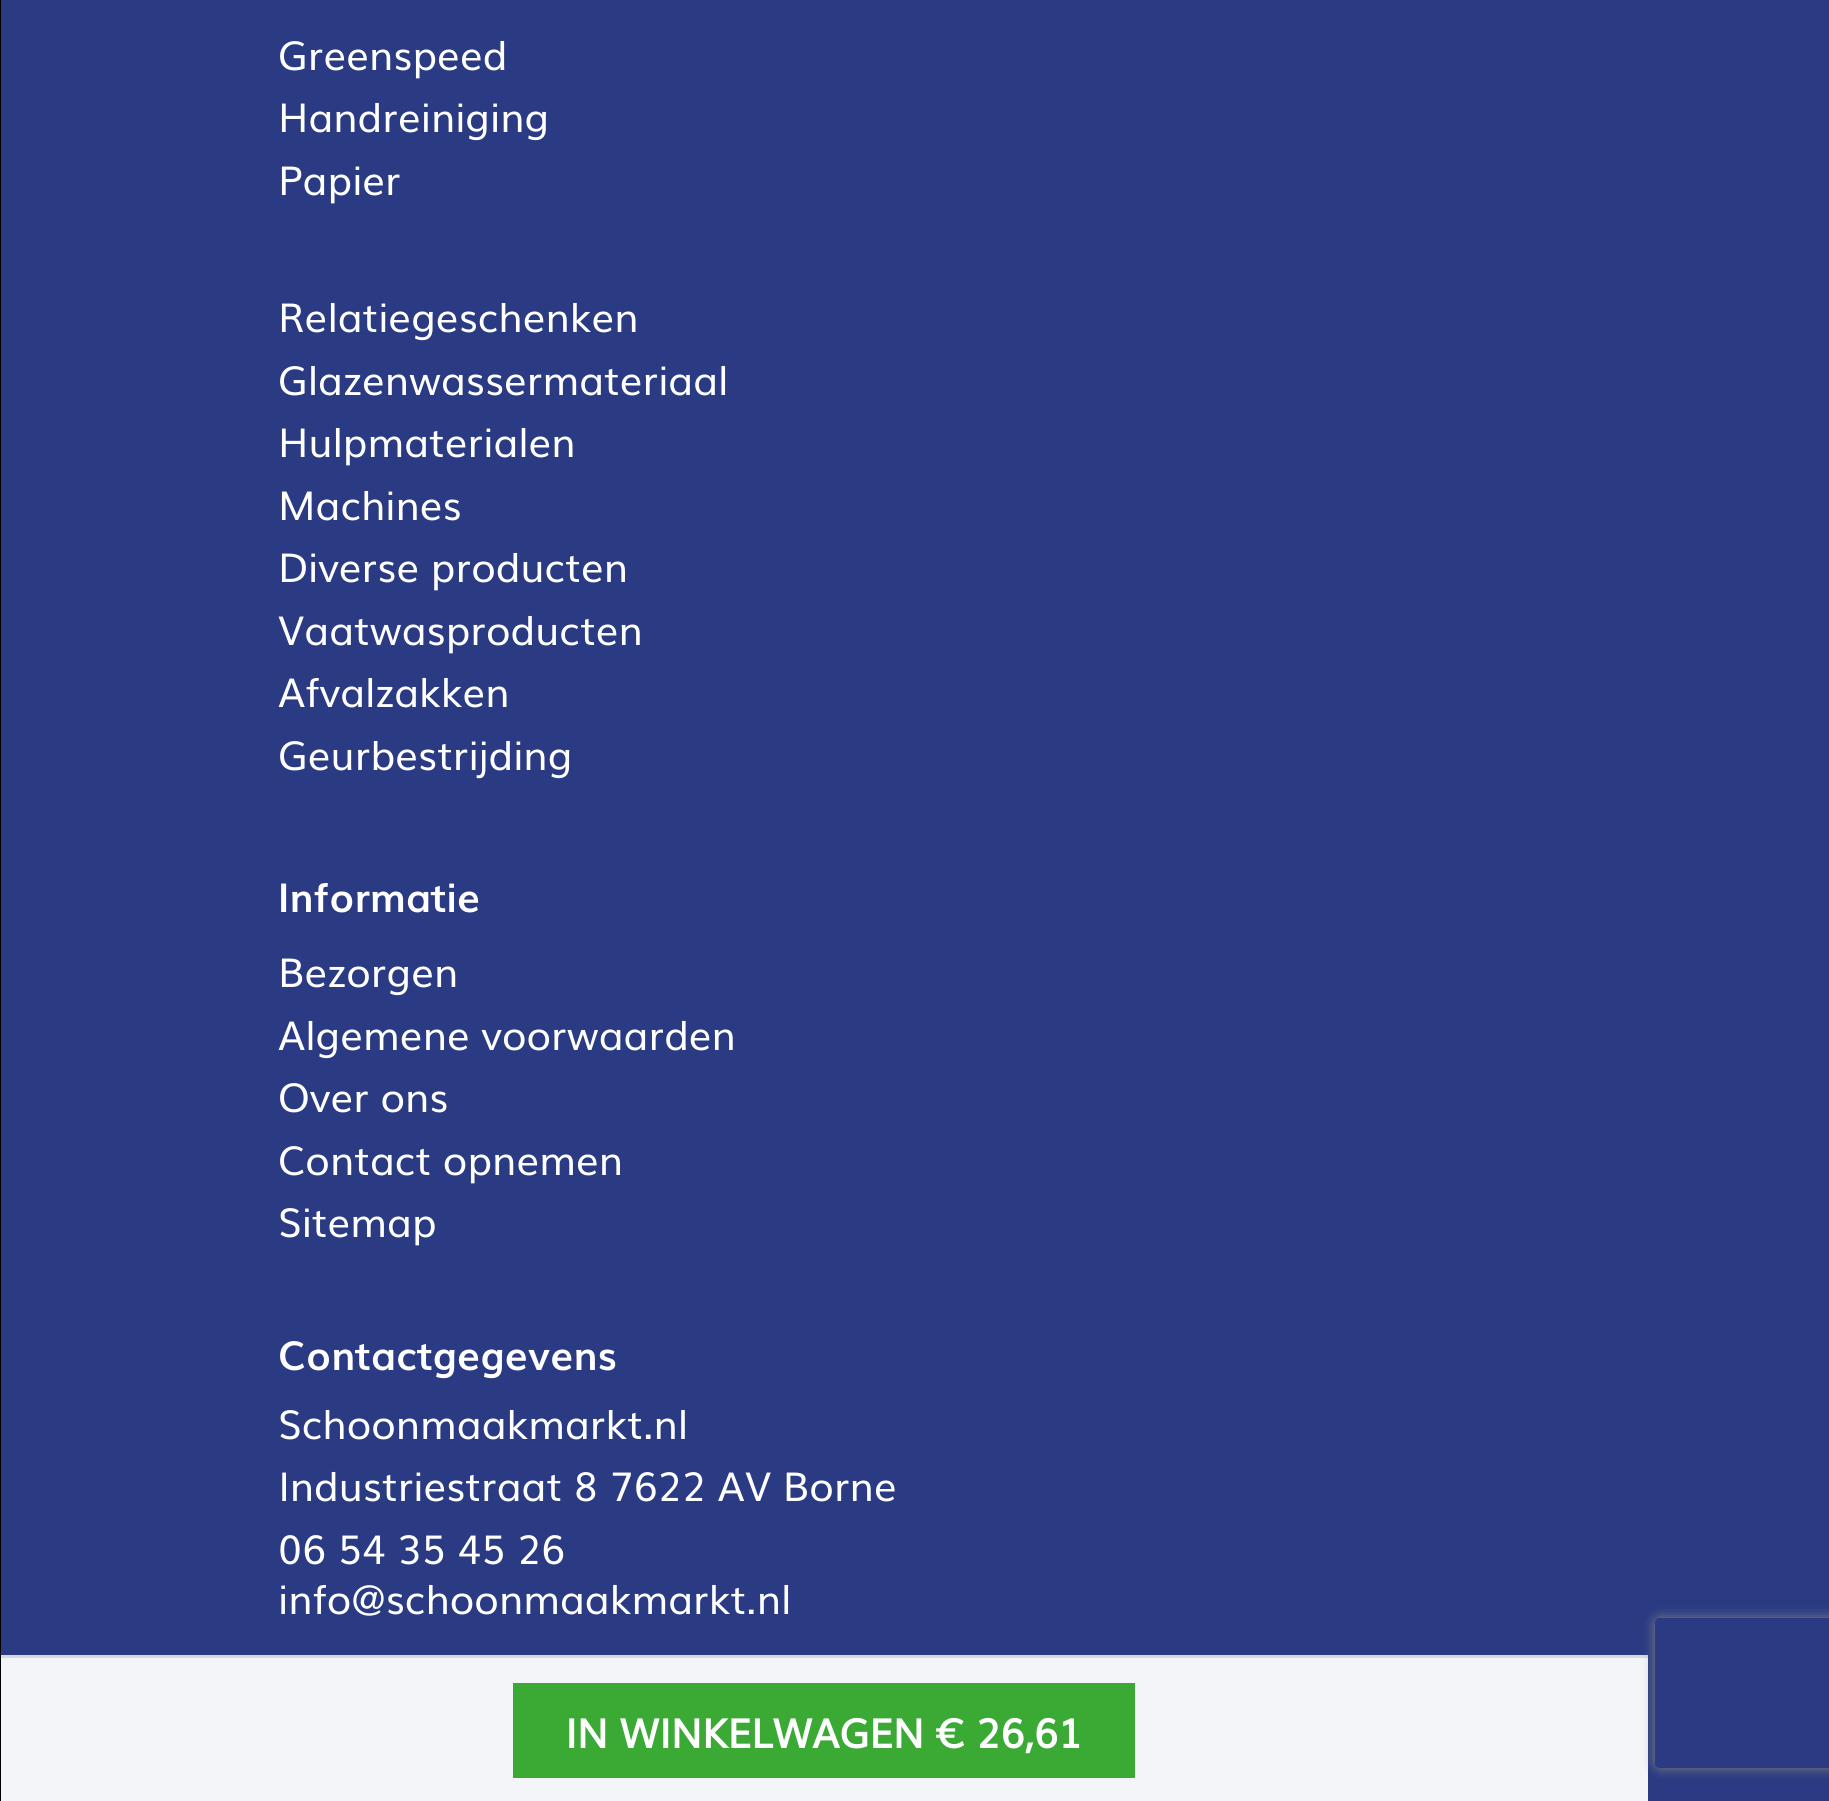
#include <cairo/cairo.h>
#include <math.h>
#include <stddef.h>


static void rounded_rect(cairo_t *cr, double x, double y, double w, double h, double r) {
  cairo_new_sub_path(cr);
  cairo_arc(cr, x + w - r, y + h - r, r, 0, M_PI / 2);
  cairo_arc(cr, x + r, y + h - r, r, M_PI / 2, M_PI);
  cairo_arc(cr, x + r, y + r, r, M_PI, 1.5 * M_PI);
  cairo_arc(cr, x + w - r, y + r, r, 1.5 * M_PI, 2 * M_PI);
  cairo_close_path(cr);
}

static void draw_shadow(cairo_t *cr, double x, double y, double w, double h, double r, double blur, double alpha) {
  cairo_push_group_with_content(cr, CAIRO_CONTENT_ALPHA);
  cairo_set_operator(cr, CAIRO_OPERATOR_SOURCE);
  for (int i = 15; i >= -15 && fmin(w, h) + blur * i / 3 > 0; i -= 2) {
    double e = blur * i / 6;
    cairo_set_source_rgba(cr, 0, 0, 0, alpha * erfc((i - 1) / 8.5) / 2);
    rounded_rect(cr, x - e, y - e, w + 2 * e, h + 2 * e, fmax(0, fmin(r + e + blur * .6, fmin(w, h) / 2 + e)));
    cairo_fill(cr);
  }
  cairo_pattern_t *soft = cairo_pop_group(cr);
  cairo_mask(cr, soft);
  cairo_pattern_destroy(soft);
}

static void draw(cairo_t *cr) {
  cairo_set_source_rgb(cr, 42 / 255.0, 58 / 255.0, 131 / 255.0);
  cairo_paint(cr);
  cairo_set_source_rgb(cr, 210 / 255.0, 218 / 255.0, 227 / 255.0);
  cairo_rectangle(cr, 0, 1655, 1648, 3);
  cairo_fill(cr);
  cairo_set_source_rgb(cr, 0, 0, 0);
  cairo_rectangle(cr, 0, 0, 1, 1801);
  cairo_fill(cr);
  cairo_set_source_rgb(cr, 244 / 255.0, 245 / 255.0, 248 / 255.0);
  cairo_rectangle(cr, 1, 1658, 1647, 143);
  cairo_fill(cr);
  cairo_save(cr);
  cairo_set_fill_rule(cr, CAIRO_FILL_RULE_EVEN_ODD);
  cairo_new_path(cr);
  cairo_move_to(cr, 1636, 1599);
  cairo_line_to(cr, 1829, 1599);
  cairo_line_to(cr, 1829, 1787);
  cairo_line_to(cr, 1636, 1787);
  cairo_close_path(cr);
  cairo_move_to(cr, 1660, 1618);
  cairo_line_to(cr, 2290, 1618);
  cairo_curve_to(cr, 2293, 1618, 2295, 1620, 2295, 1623);
  cairo_line_to(cr, 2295, 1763);
  cairo_curve_to(cr, 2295, 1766, 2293, 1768, 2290, 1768);
  cairo_line_to(cr, 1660, 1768);
  cairo_curve_to(cr, 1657, 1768, 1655, 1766, 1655, 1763);
  cairo_line_to(cr, 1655, 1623);
  cairo_curve_to(cr, 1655, 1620, 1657, 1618, 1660, 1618);
  cairo_close_path(cr);
  cairo_clip(cr);
  cairo_set_source_rgb(cr, 128 / 255.0, 128 / 255.0, 128 / 255.0);
  draw_shadow(cr, 1655, 1618, 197, 150, 5, 6, 1);
  cairo_restore(cr);
  cairo_set_source_rgb(cr, 58 / 255.0, 170 / 255.0, 53 / 255.0);
  cairo_rectangle(cr, 513, 1683, 622, 95);
  cairo_fill(cr);
  cairo_select_font_face(cr, "Muli", CAIRO_FONT_SLANT_NORMAL, CAIRO_FONT_WEIGHT_NORMAL);
  cairo_set_font_size(cr, 40);
  cairo_set_source_rgb(cr, 1, 1, 1);
  cairo_move_to(cr, 278, 70);
  cairo_show_text(cr, "Greenspeed");
  cairo_move_to(cr, 278, 132);
  cairo_show_text(cr, "Handreiniging");
  cairo_move_to(cr, 278, 195);
  cairo_show_text(cr, "Papier");
  cairo_move_to(cr, 278, 332);
  cairo_show_text(cr, "Relatiegeschenken");
  cairo_move_to(cr, 278, 395);
  cairo_show_text(cr, "Glazenwassermateriaal");
  cairo_move_to(cr, 278, 457);
  cairo_show_text(cr, "Hulpmaterialen");
  cairo_move_to(cr, 278, 520);
  cairo_show_text(cr, "Machines");
  cairo_move_to(cr, 278, 582);
  cairo_show_text(cr, "Diverse producten");
  cairo_move_to(cr, 278, 645);
  cairo_show_text(cr, "Vaatwasproducten");
  cairo_move_to(cr, 278, 707);
  cairo_show_text(cr, "Afvalzakken");
  cairo_move_to(cr, 278, 770);
  cairo_show_text(cr, "Geurbestrijding");
  cairo_select_font_face(cr, "Muli", CAIRO_FONT_SLANT_NORMAL, CAIRO_FONT_WEIGHT_BOLD);
  cairo_move_to(cr, 278, 912);
  cairo_show_text(cr, "Informatie");
  cairo_select_font_face(cr, "Muli", CAIRO_FONT_SLANT_NORMAL, CAIRO_FONT_WEIGHT_NORMAL);
  cairo_move_to(cr, 278, 987);
  cairo_show_text(cr, "Bezorgen");
  cairo_move_to(cr, 278, 1050);
  cairo_show_text(cr, "Algemene voorwaarden");
  cairo_move_to(cr, 278, 1112);
  cairo_show_text(cr, "Over ons");
  cairo_move_to(cr, 278, 1175);
  cairo_show_text(cr, "Contact opnemen");
  cairo_move_to(cr, 278, 1237);
  cairo_show_text(cr, "Sitemap");
  cairo_select_font_face(cr, "Muli", CAIRO_FONT_SLANT_NORMAL, CAIRO_FONT_WEIGHT_BOLD);
  cairo_move_to(cr, 278, 1370);
  cairo_show_text(cr, "Contactgegevens");
  cairo_select_font_face(cr, "Muli", CAIRO_FONT_SLANT_NORMAL, CAIRO_FONT_WEIGHT_NORMAL);
  cairo_move_to(cr, 278, 1439);
  cairo_show_text(cr, "Schoonmaakmarkt.nl");
  cairo_move_to(cr, 278, 1501);
  cairo_show_text(cr, "Industriestraat 8 7622 AV Borne");
  cairo_move_to(cr, 278, 1564);
  cairo_show_text(cr, "06 54 35 45 26");
  cairo_move_to(cr, 278, 1614);
  cairo_show_text(cr, "info@schoonmaakmarkt.nl");
  cairo_select_font_face(cr, "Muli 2", CAIRO_FONT_SLANT_NORMAL, CAIRO_FONT_WEIGHT_BOLD);
  cairo_move_to(cr, 565, 1748);
  cairo_show_text(cr, "IN WINKELWAGEN € 26,61");
}

int main(void) {
  cairo_surface_t *surface = cairo_image_surface_create(CAIRO_FORMAT_RGB24, 1829, 1801);
  cairo_t *cr = cairo_create(surface);
  cairo_font_options_t *options = cairo_font_options_create();
  cairo_font_options_set_hint_metrics(options, CAIRO_HINT_METRICS_OFF);
  cairo_font_options_set_hint_style(options, CAIRO_HINT_STYLE_NONE);
  cairo_set_font_options(cr, options);
  cairo_set_miter_limit(cr, 4);
  draw(cr);
  cairo_surface_write_to_png(surface, "out.png");
  cairo_font_options_destroy(options);
  cairo_destroy(cr);
  cairo_surface_destroy(surface);
  return 0;
}
